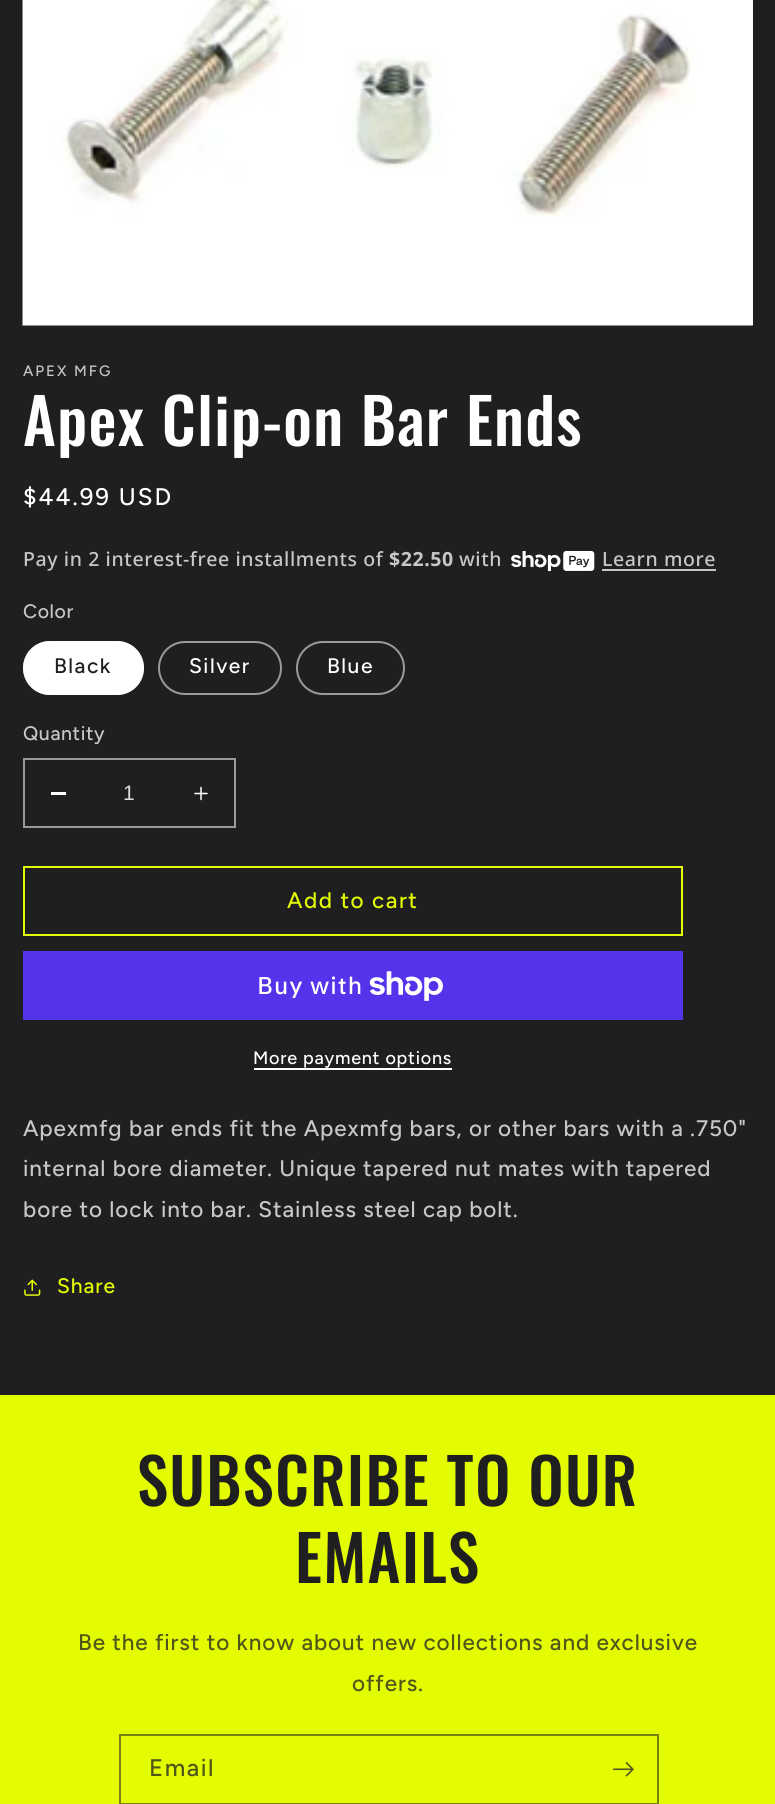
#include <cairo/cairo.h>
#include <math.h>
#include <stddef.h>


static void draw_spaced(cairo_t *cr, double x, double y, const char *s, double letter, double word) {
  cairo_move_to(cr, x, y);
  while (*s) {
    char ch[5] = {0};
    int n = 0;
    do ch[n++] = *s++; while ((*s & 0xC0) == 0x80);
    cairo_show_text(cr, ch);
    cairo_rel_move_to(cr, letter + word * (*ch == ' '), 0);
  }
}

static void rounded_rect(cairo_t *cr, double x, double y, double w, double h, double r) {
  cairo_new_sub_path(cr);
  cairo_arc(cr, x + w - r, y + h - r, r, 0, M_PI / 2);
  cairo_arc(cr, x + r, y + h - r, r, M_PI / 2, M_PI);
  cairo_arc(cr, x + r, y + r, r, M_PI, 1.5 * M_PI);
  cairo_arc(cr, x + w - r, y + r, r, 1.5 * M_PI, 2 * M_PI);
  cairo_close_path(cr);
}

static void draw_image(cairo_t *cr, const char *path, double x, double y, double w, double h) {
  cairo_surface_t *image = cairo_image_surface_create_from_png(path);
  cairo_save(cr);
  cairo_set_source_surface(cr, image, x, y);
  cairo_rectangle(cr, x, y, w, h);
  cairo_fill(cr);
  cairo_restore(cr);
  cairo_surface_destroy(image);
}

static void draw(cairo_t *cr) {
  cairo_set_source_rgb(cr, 31 / 255.0, 31 / 255.0, 33 / 255.0);
  cairo_paint(cr);
  draw_image(cr, "images/1.png", 22, 0, 731, 326);
  draw_image(cr, "images/2.png", 511, 551, 84, 21);
  cairo_set_source_rgb(cr, 199 / 255.0, 199 / 255.0, 200 / 255.0);
  cairo_rectangle(cr, 602, 569, 114, 2);
  cairo_fill(cr);
  cairo_set_source_rgb(cr, 1, 1, 1);
  rounded_rect(cr, 23, 641, 121, 54, 27);
  cairo_fill(cr);
  rounded_rect(cr, 24, 642, 119, 52, 26);
  cairo_set_source_rgba(cr, 1, 1, 1, 0.55);
  cairo_stroke(cr);
  rounded_rect(cr, 159, 642, 122, 52, 26);
  cairo_set_source_rgb(cr, 154 / 255.0, 154 / 255.0, 155 / 255.0);
  cairo_stroke(cr);
  rounded_rect(cr, 297, 642, 107, 52, 26);
  cairo_stroke(cr);
  cairo_set_source_rgb(cr, 1, 1, 1);
  cairo_rectangle(cr, 51, 792, 15, 3);
  cairo_fill(cr);
  draw_image(cr, "images/3.png", 194, 786, 14, 15);
  cairo_rectangle(cr, 24, 759, 211, 68);
  cairo_set_source_rgb(cr, 154 / 255.0, 154 / 255.0, 155 / 255.0);
  cairo_stroke(cr);
  cairo_rectangle(cr, 24, 867, 658, 68);
  cairo_set_source_rgb(cr, 227 / 255.0, 252 / 255.0, 2 / 255.0);
  cairo_stroke(cr);
  cairo_set_source_rgb(cr, 84 / 255.0, 51 / 255.0, 235 / 255.0);
  cairo_rectangle(cr, 23, 951, 660, 69);
  cairo_fill(cr);
  draw_image(cr, "images/4.png", 369, 971, 74, 30);
  cairo_set_source_rgb(cr, 1, 1, 1);
  cairo_rectangle(cr, 254, 1068, 198, 2);
  cairo_fill(cr);
  draw_image(cr, "images/5.png", 24, 1279, 17, 17);
  cairo_set_source_rgb(cr, 227 / 255.0, 252 / 255.0, 2 / 255.0);
  cairo_rectangle(cr, 0, 1395, 775, 409);
  cairo_fill(cr);
  cairo_rectangle(cr, 120, 1735, 538, 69);
  cairo_set_source_rgb(cr, 119 / 255.0, 130 / 255.0, 19 / 255.0);
  cairo_stroke(cr);
  draw_image(cr, "images/6.png", 612, 1762, 22, 15);
  cairo_select_font_face(cr, "Figtree Medium", CAIRO_FONT_SLANT_NORMAL, CAIRO_FONT_WEIGHT_NORMAL);
  cairo_set_font_size(cr, 15);
  cairo_set_source_rgb(cr, 199 / 255.0, 199 / 255.0, 200 / 255.0);
  draw_spaced(cr, 23, 376, "APEX MFG", 2, 0);
  cairo_select_font_face(cr, "Oswald Medium", CAIRO_FONT_SLANT_NORMAL, CAIRO_FONT_WEIGHT_NORMAL);
  cairo_set_font_size(cr, 63);
  cairo_set_source_rgb(cr, 1, 1, 1);
  draw_spaced(cr, 23, 446, "Apex Clip-on Bar Ends", 1.25, 0);
  cairo_select_font_face(cr, "Figtree Medium", CAIRO_FONT_SLANT_NORMAL, CAIRO_FONT_WEIGHT_NORMAL);
  cairo_set_font_size(cr, 24);
  draw_spaced(cr, 23, 505, "$44.99 USD", 2, 0);
  cairo_select_font_face(cr, "Noto Sans Medium", CAIRO_FONT_SLANT_NORMAL, CAIRO_FONT_WEIGHT_NORMAL);
  cairo_set_font_size(cr, 19.5);
  cairo_set_source_rgb(cr, 199 / 255.0, 199 / 255.0, 200 / 255.0);
  draw_spaced(cr, 23, 566, "Pay in 2 interest-free installments of", 0.6, 0);
  cairo_select_font_face(cr, "Noto Sans", CAIRO_FONT_SLANT_NORMAL, CAIRO_FONT_WEIGHT_BOLD);
  draw_spaced(cr, 389, 566, "$22.50", 0.6, 0);
  cairo_select_font_face(cr, "Noto Sans Medium", CAIRO_FONT_SLANT_NORMAL, CAIRO_FONT_WEIGHT_NORMAL);
  draw_spaced(cr, 459, 566, "with", 0.6, 0);
  draw_spaced(cr, 602, 566, "Learn more", 0.6, 0);
  cairo_select_font_face(cr, "Figtree Medium", CAIRO_FONT_SLANT_NORMAL, CAIRO_FONT_WEIGHT_NORMAL);
  draw_spaced(cr, 23, 618, "Color", 0.6, 0);
  cairo_set_font_size(cr, 21);
  cairo_set_source_rgb(cr, 31 / 255.0, 31 / 255.0, 33 / 255.0);
  draw_spaced(cr, 54, 673, "Black", 1.5, 0);
  cairo_set_source_rgb(cr, 1, 1, 1);
  draw_spaced(cr, 189, 673, "Silver", 1.5, 0);
  draw_spaced(cr, 327, 673, "Blue", 1.5, 0);
  cairo_set_font_size(cr, 19.5);
  cairo_set_source_rgb(cr, 199 / 255.0, 199 / 255.0, 200 / 255.0);
  draw_spaced(cr, 23, 740, "Quantity", 0.6, 0);
  cairo_select_font_face(cr, "Liberation Sans", CAIRO_FONT_SLANT_NORMAL, CAIRO_FONT_WEIGHT_NORMAL);
  cairo_set_font_size(cr, 21);
  cairo_set_source_rgb(cr, 221 / 255.0, 221 / 255.0, 222 / 255.0);
  cairo_move_to(cr, 123, 800);
  cairo_show_text(cr, "1");
  cairo_select_font_face(cr, "Figtree Medium", CAIRO_FONT_SLANT_NORMAL, CAIRO_FONT_WEIGHT_NORMAL);
  cairo_set_font_size(cr, 22.5);
  cairo_set_source_rgb(cr, 227 / 255.0, 252 / 255.0, 2 / 255.0);
  draw_spaced(cr, 287, 908, "Add to cart", 1.5, 0);
  cairo_select_font_face(cr, "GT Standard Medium", CAIRO_FONT_SLANT_NORMAL, CAIRO_FONT_WEIGHT_NORMAL);
  cairo_set_font_size(cr, 24);
  cairo_set_source_rgb(cr, 1, 1, 1);
  draw_spaced(cr, 257, 994, "Buy with", 0.9, 0);
  cairo_select_font_face(cr, "Figtree Medium", CAIRO_FONT_SLANT_NORMAL, CAIRO_FONT_WEIGHT_NORMAL);
  cairo_set_font_size(cr, 18);
  draw_spaced(cr, 253, 1064, "More payment options", 0.75, 0);
  cairo_set_font_size(cr, 22.5);
  cairo_set_source_rgb(cr, 199 / 255.0, 199 / 255.0, 200 / 255.0);
  draw_spaced(cr, 23, 1136, "Apexmfg bar ends fit the Apexmfg bars, or other bars with a .750\"", 0.9, 0);
  draw_spaced(cr, 23, 1176, "internal bore diameter. Unique tapered nut mates with tapered", 0.9, 0);
  draw_spaced(cr, 23, 1217, "bore to lock into bar. Stainless steel cap bolt.", 0.9, 0);
  cairo_set_font_size(cr, 21);
  cairo_set_source_rgb(cr, 227 / 255.0, 252 / 255.0, 2 / 255.0);
  draw_spaced(cr, 57, 1293, "Share", 0.9, 0);
  cairo_select_font_face(cr, "Oswald Medium", CAIRO_FONT_SLANT_NORMAL, CAIRO_FONT_WEIGHT_NORMAL);
  cairo_set_font_size(cr, 63);
  cairo_set_source_rgb(cr, 31 / 255.0, 31 / 255.0, 33 / 255.0);
  draw_spaced(cr, 137, 1506, "SUBSCRIBE TO OUR", 1.25, 0);
  draw_spaced(cr, 295, 1583, "EMAILS", 1.25, 0);
  cairo_select_font_face(cr, "Figtree Medium", CAIRO_FONT_SLANT_NORMAL, CAIRO_FONT_WEIGHT_NORMAL);
  cairo_set_font_size(cr, 22.5);
  cairo_set_source_rgb(cr, 80 / 255.0, 86 / 255.0, 25 / 255.0);
  draw_spaced(cr, 78, 1650, "Be the first to know about new collections and exclusive", 0.9, 0);
  draw_spaced(cr, 352, 1691, "offers.", 0.9, 0);
  cairo_set_font_size(cr, 24);
  draw_spaced(cr, 149, 1776, "Email", 1.5, 0);
}

int main(void) {
  cairo_surface_t *surface = cairo_image_surface_create(CAIRO_FORMAT_RGB24, 775, 1804);
  cairo_t *cr = cairo_create(surface);
  cairo_font_options_t *options = cairo_font_options_create();
  cairo_font_options_set_hint_metrics(options, CAIRO_HINT_METRICS_OFF);
  cairo_font_options_set_hint_style(options, CAIRO_HINT_STYLE_NONE);
  cairo_set_font_options(cr, options);
  cairo_set_miter_limit(cr, 4);
  draw(cr);
  cairo_surface_write_to_png(surface, "out.png");
  cairo_font_options_destroy(options);
  cairo_destroy(cr);
  cairo_surface_destroy(surface);
  return 0;
}
